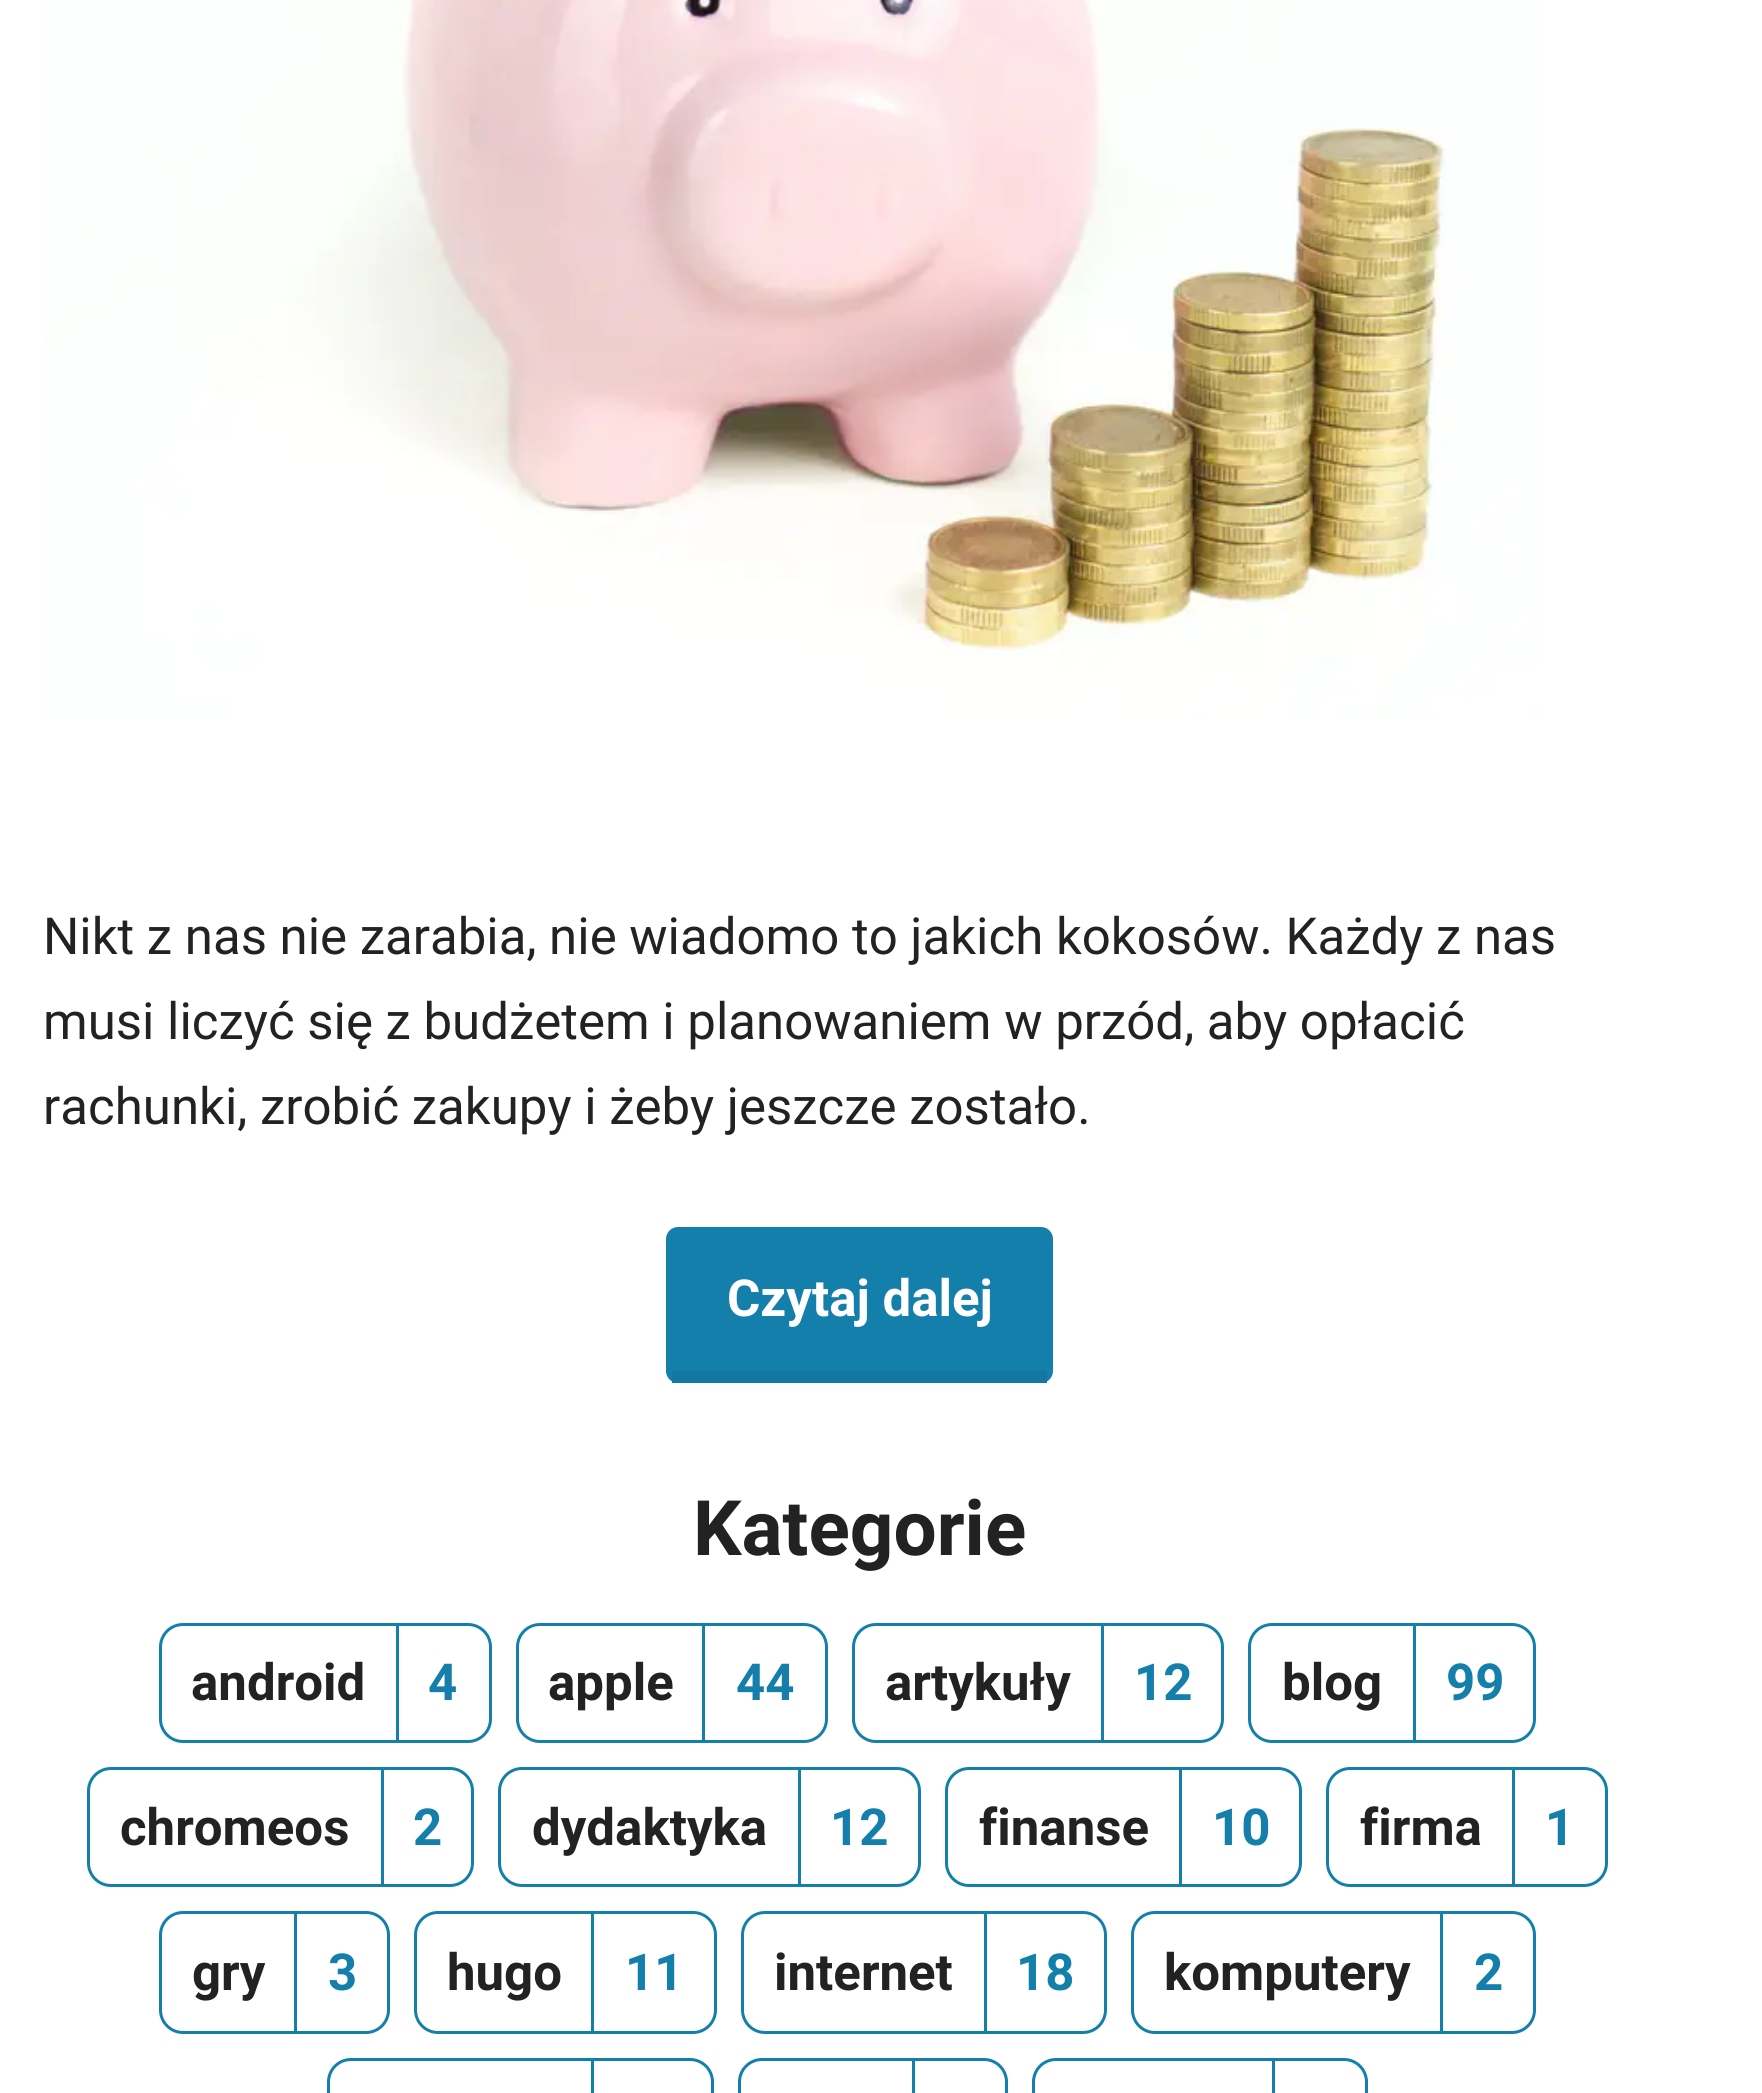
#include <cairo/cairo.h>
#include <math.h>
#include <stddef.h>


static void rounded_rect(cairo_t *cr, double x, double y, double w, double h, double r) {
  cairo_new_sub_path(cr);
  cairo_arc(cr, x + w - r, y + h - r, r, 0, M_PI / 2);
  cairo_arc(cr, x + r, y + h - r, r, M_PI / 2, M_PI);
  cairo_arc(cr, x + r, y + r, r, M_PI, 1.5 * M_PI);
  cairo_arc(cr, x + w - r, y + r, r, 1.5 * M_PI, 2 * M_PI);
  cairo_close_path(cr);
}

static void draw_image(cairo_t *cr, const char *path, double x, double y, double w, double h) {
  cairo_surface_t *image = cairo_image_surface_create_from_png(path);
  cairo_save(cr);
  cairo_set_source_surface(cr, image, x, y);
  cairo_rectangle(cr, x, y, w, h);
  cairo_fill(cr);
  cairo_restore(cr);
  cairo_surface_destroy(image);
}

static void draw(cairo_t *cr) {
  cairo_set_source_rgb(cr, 1, 1, 1);
  cairo_paint(cr);
  draw_image(cr, "images/1.png", 43, 0, 1497, 720);
  cairo_set_source_rgb(cr, 19 / 255.0, 127 / 255.0, 170 / 255.0);
  rounded_rect(cr, 666, 1227, 387, 156, 12);
  cairo_fill(cr);
  cairo_set_source_rgb(cr, 18 / 255.0, 120 / 255.0, 161 / 255.0);
  cairo_rectangle(cr, 672, 1371, 375, 12);
  cairo_fill(cr);
  rounded_rect(cr, 160.5, 1624.5, 330, 117, 22.5);
  cairo_set_source_rgb(cr, 19 / 255.0, 127 / 255.0, 170 / 255.0);
  cairo_set_line_width(cr, 3);
  cairo_stroke(cr);
  cairo_rectangle(cr, 396, 1626, 3, 114);
  cairo_fill(cr);
  rounded_rect(cr, 517.5, 1624.5, 309, 117, 22.5);
  cairo_stroke(cr);
  cairo_rectangle(cr, 702, 1626, 3, 114);
  cairo_fill(cr);
  rounded_rect(cr, 853.5, 1624.5, 369, 117, 22.5);
  cairo_stroke(cr);
  cairo_rectangle(cr, 1101, 1626, 3, 114);
  cairo_fill(cr);
  rounded_rect(cr, 1249.5, 1624.5, 285, 117, 22.5);
  cairo_stroke(cr);
  cairo_rectangle(cr, 1413, 1626, 3, 114);
  cairo_fill(cr);
  rounded_rect(cr, 88.5, 1768.5, 384, 117, 22.5);
  cairo_stroke(cr);
  cairo_rectangle(cr, 381, 1770, 3, 114);
  cairo_fill(cr);
  rounded_rect(cr, 499.5, 1768.5, 420, 117, 22.5);
  cairo_stroke(cr);
  cairo_rectangle(cr, 798, 1770, 3, 114);
  cairo_fill(cr);
  rounded_rect(cr, 946.5, 1768.5, 354, 117, 22.5);
  cairo_stroke(cr);
  cairo_rectangle(cr, 1179, 1770, 3, 114);
  cairo_fill(cr);
  rounded_rect(cr, 1327.5, 1768.5, 279, 117, 22.5);
  cairo_stroke(cr);
  cairo_rectangle(cr, 1512, 1770, 3, 114);
  cairo_fill(cr);
  rounded_rect(cr, 160.5, 1912.5, 228, 120, 22.5);
  cairo_stroke(cr);
  cairo_rectangle(cr, 294, 1914, 3, 117);
  cairo_fill(cr);
  rounded_rect(cr, 415.5, 1912.5, 300, 120, 22.5);
  cairo_stroke(cr);
  cairo_rectangle(cr, 591, 1914, 3, 117);
  cairo_fill(cr);
  rounded_rect(cr, 742.5, 1912.5, 363, 120, 22.5);
  cairo_stroke(cr);
  cairo_rectangle(cr, 984, 1914, 3, 117);
  cairo_fill(cr);
  rounded_rect(cr, 1132.5, 1912.5, 402, 120, 22.5);
  cairo_stroke(cr);
  cairo_rectangle(cr, 1440, 1914, 3, 117);
  cairo_fill(cr);
  rounded_rect(cr, 328.5, 2059.5, 384, 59, 22.5);
  cairo_stroke(cr);
  cairo_rectangle(cr, 591, 2061, 3, 32);
  cairo_fill(cr);
  rounded_rect(cr, 739.5, 2059.5, 267, 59, 22.5);
  cairo_stroke(cr);
  cairo_rectangle(cr, 912, 2061, 3, 32);
  cairo_fill(cr);
  rounded_rect(cr, 1033.5, 2059.5, 333, 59, 22.5);
  cairo_stroke(cr);
  cairo_rectangle(cr, 1272, 2061, 3, 32);
  cairo_fill(cr);
  cairo_select_font_face(cr, "Roboto", CAIRO_FONT_SLANT_NORMAL, CAIRO_FONT_WEIGHT_NORMAL);
  cairo_set_font_size(cr, 51);
  cairo_set_source_rgb(cr, 34 / 255.0, 34 / 255.0, 34 / 255.0);
  cairo_move_to(cr, 43, 954);
  cairo_show_text(cr, "Nikt z nas nie zarabia, nie wiadomo to jakich kokosów. Każdy z nas");
  cairo_move_to(cr, 43, 1039);
  cairo_show_text(cr, "musi liczyć się z budżetem i planowaniem w przód, aby opłacić");
  cairo_move_to(cr, 43, 1124);
  cairo_show_text(cr, "rachunki, zrobić zakupy i żeby jeszcze zostało.");
  cairo_select_font_face(cr, "Roboto", CAIRO_FONT_SLANT_NORMAL, CAIRO_FONT_WEIGHT_BOLD);
  cairo_set_source_rgb(cr, 1, 1, 1);
  cairo_move_to(cr, 727, 1316);
  cairo_show_text(cr, "Czytaj dalej");
  cairo_set_font_size(cr, 76.5);
  cairo_set_source_rgb(cr, 34 / 255.0, 34 / 255.0, 34 / 255.0);
  cairo_move_to(cr, 693, 1555);
  cairo_show_text(cr, "Kategorie");
  cairo_set_font_size(cr, 51);
  cairo_move_to(cr, 191, 1700);
  cairo_show_text(cr, "android");
  cairo_set_source_rgb(cr, 19 / 255.0, 127 / 255.0, 170 / 255.0);
  cairo_move_to(cr, 428, 1700);
  cairo_show_text(cr, "4");
  cairo_set_source_rgb(cr, 34 / 255.0, 34 / 255.0, 34 / 255.0);
  cairo_move_to(cr, 548, 1700);
  cairo_show_text(cr, "apple");
  cairo_set_source_rgb(cr, 19 / 255.0, 127 / 255.0, 170 / 255.0);
  cairo_move_to(cr, 736, 1700);
  cairo_show_text(cr, "44");
  cairo_set_source_rgb(cr, 34 / 255.0, 34 / 255.0, 34 / 255.0);
  cairo_move_to(cr, 885, 1700);
  cairo_show_text(cr, "artykuły");
  cairo_set_source_rgb(cr, 19 / 255.0, 127 / 255.0, 170 / 255.0);
  cairo_move_to(cr, 1134, 1700);
  cairo_show_text(cr, "12");
  cairo_set_source_rgb(cr, 34 / 255.0, 34 / 255.0, 34 / 255.0);
  cairo_move_to(cr, 1282, 1700);
  cairo_show_text(cr, "blog");
  cairo_set_source_rgb(cr, 19 / 255.0, 127 / 255.0, 170 / 255.0);
  cairo_move_to(cr, 1446, 1700);
  cairo_show_text(cr, "99");
  cairo_set_source_rgb(cr, 34 / 255.0, 34 / 255.0, 34 / 255.0);
  cairo_move_to(cr, 120, 1845);
  cairo_show_text(cr, "chromeos");
  cairo_set_source_rgb(cr, 19 / 255.0, 127 / 255.0, 170 / 255.0);
  cairo_move_to(cr, 413, 1845);
  cairo_show_text(cr, "2");
  cairo_set_source_rgb(cr, 34 / 255.0, 34 / 255.0, 34 / 255.0);
  cairo_move_to(cr, 532, 1845);
  cairo_show_text(cr, "dydaktyka");
  cairo_set_source_rgb(cr, 19 / 255.0, 127 / 255.0, 170 / 255.0);
  cairo_move_to(cr, 830, 1845);
  cairo_show_text(cr, "12");
  cairo_set_source_rgb(cr, 34 / 255.0, 34 / 255.0, 34 / 255.0);
  cairo_move_to(cr, 979, 1845);
  cairo_show_text(cr, "finanse");
  cairo_set_source_rgb(cr, 19 / 255.0, 127 / 255.0, 170 / 255.0);
  cairo_move_to(cr, 1212, 1845);
  cairo_show_text(cr, "10");
  cairo_set_source_rgb(cr, 34 / 255.0, 34 / 255.0, 34 / 255.0);
  cairo_move_to(cr, 1360, 1845);
  cairo_show_text(cr, "firma");
  cairo_set_source_rgb(cr, 19 / 255.0, 127 / 255.0, 170 / 255.0);
  cairo_move_to(cr, 1545, 1845);
  cairo_show_text(cr, "1");
  cairo_set_source_rgb(cr, 34 / 255.0, 34 / 255.0, 34 / 255.0);
  cairo_move_to(cr, 192, 1990);
  cairo_show_text(cr, "gry");
  cairo_set_source_rgb(cr, 19 / 255.0, 127 / 255.0, 170 / 255.0);
  cairo_move_to(cr, 328, 1990);
  cairo_show_text(cr, "3");
  cairo_set_source_rgb(cr, 34 / 255.0, 34 / 255.0, 34 / 255.0);
  cairo_move_to(cr, 447, 1990);
  cairo_show_text(cr, "hugo");
  cairo_set_source_rgb(cr, 19 / 255.0, 127 / 255.0, 170 / 255.0);
  cairo_move_to(cr, 625, 1990);
  cairo_show_text(cr, "11");
  cairo_set_source_rgb(cr, 34 / 255.0, 34 / 255.0, 34 / 255.0);
  cairo_move_to(cr, 774, 1990);
  cairo_show_text(cr, "internet");
  cairo_set_source_rgb(cr, 19 / 255.0, 127 / 255.0, 170 / 255.0);
  cairo_move_to(cr, 1016, 1990);
  cairo_show_text(cr, "18");
  cairo_set_source_rgb(cr, 34 / 255.0, 34 / 255.0, 34 / 255.0);
  cairo_move_to(cr, 1164, 1990);
  cairo_show_text(cr, "komputery");
  cairo_set_source_rgb(cr, 19 / 255.0, 127 / 255.0, 170 / 255.0);
  cairo_move_to(cr, 1474, 1990);
  cairo_show_text(cr, "2");
}

int main(void) {
  cairo_surface_t *surface = cairo_image_surface_create(CAIRO_FORMAT_RGB24, 1762, 2093);
  cairo_t *cr = cairo_create(surface);
  cairo_font_options_t *options = cairo_font_options_create();
  cairo_font_options_set_hint_metrics(options, CAIRO_HINT_METRICS_OFF);
  cairo_font_options_set_hint_style(options, CAIRO_HINT_STYLE_NONE);
  cairo_set_font_options(cr, options);
  cairo_set_miter_limit(cr, 4);
  draw(cr);
  cairo_surface_write_to_png(surface, "out.png");
  cairo_font_options_destroy(options);
  cairo_destroy(cr);
  cairo_surface_destroy(surface);
  return 0;
}
